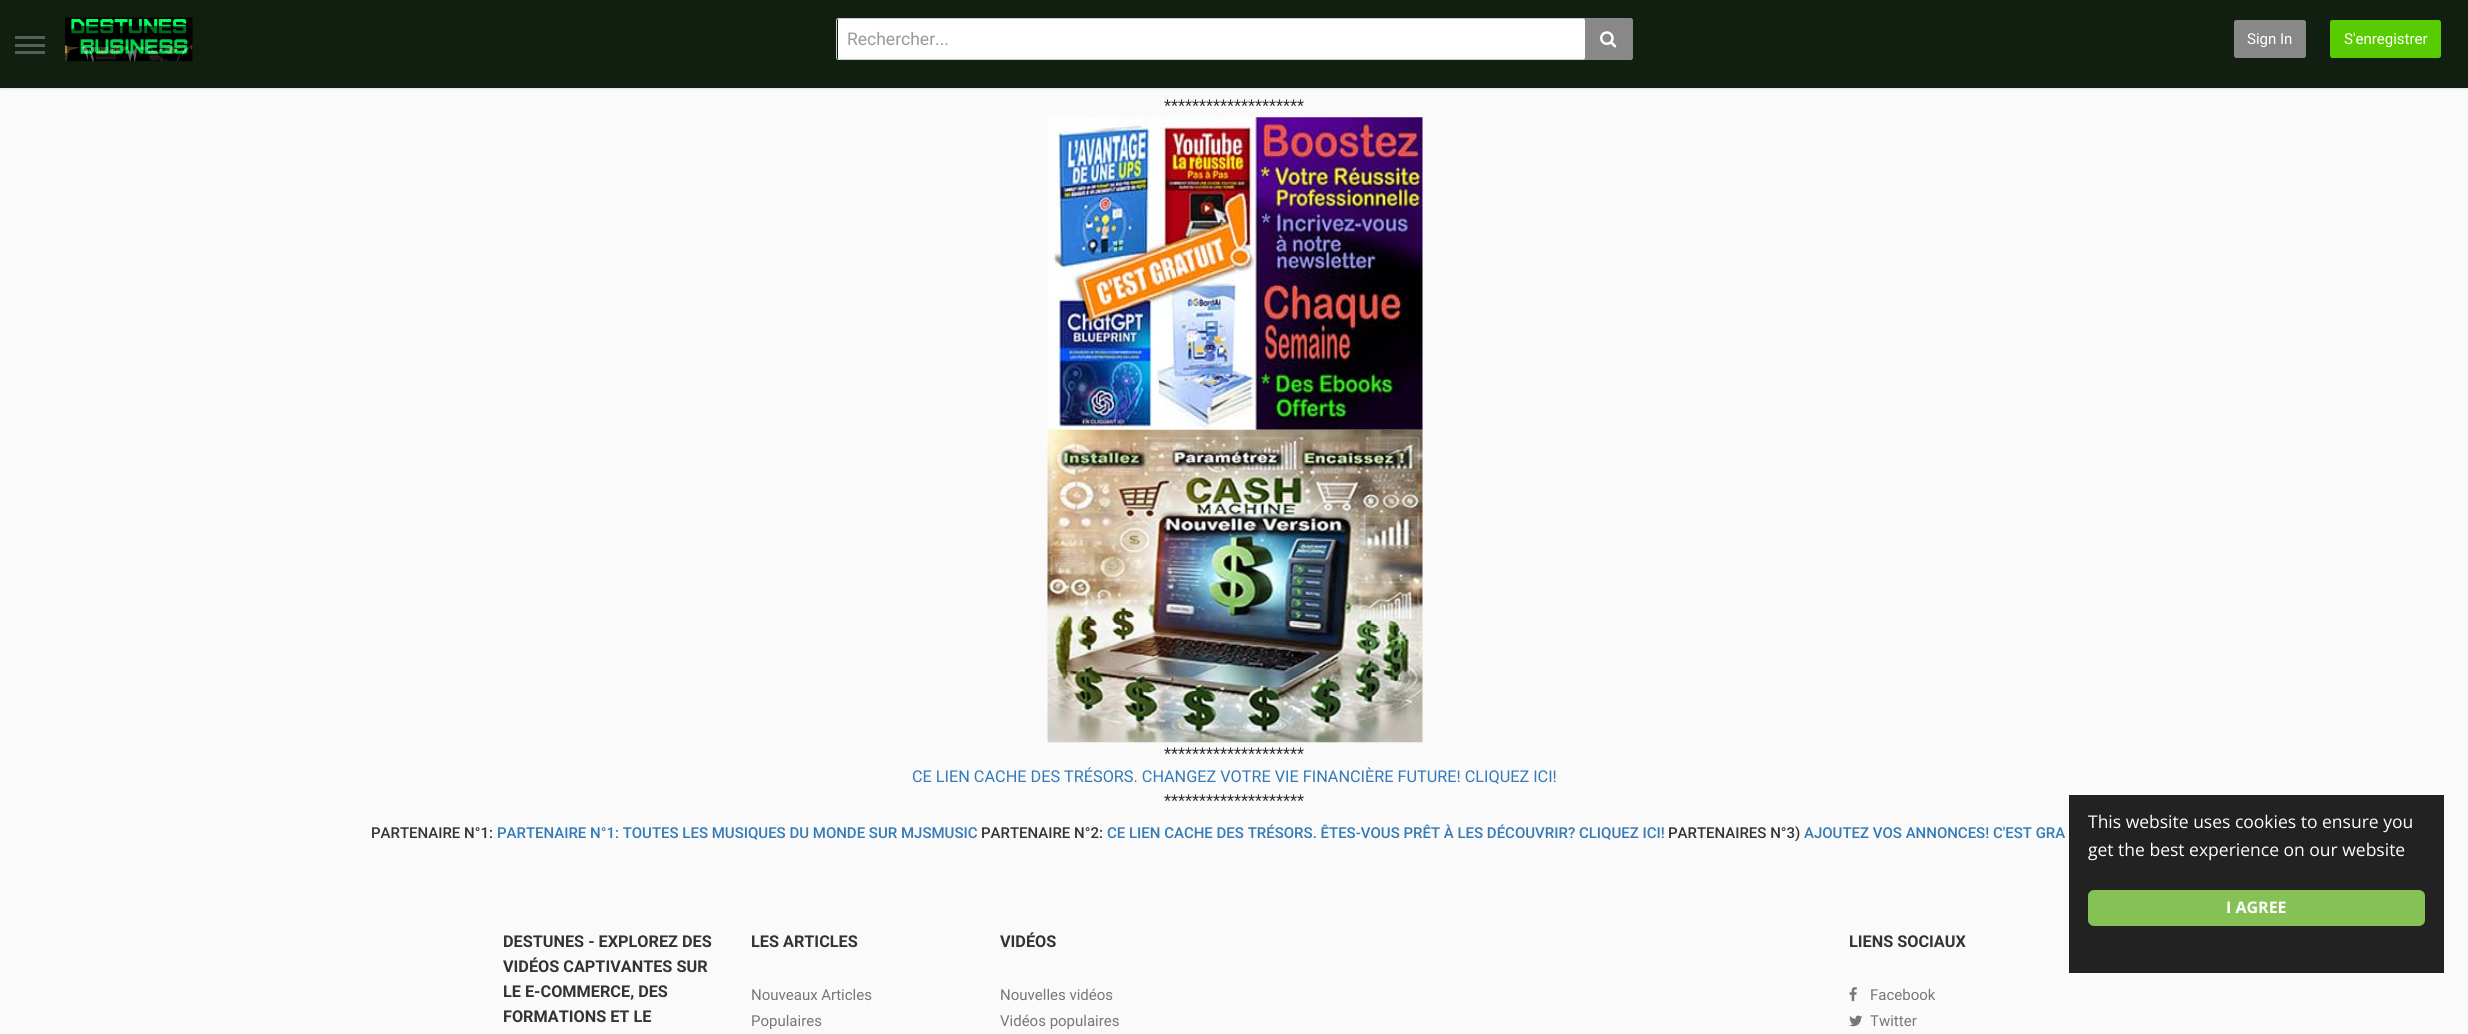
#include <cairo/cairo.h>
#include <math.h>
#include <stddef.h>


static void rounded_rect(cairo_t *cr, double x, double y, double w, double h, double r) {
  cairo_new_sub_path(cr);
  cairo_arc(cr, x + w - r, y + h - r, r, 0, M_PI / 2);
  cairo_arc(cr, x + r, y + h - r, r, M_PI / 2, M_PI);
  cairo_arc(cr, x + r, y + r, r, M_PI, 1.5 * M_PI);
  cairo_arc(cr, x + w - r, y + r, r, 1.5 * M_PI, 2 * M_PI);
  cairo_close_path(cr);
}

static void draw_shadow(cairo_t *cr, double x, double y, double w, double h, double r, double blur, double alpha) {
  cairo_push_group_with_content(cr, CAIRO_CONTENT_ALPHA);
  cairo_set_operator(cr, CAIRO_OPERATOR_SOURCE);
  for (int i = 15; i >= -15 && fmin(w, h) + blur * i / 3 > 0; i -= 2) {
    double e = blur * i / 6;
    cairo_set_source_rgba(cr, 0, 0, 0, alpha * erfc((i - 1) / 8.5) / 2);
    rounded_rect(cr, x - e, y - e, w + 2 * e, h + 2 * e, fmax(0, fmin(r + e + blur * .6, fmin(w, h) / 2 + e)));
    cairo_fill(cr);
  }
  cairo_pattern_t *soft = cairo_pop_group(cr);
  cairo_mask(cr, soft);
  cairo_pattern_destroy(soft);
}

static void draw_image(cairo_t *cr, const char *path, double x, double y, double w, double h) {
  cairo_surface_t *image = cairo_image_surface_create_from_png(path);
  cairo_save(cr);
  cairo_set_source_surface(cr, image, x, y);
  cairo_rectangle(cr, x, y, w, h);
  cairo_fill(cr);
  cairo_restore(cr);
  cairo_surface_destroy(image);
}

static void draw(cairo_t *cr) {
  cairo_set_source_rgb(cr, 250 / 255.0, 250 / 255.0, 250 / 255.0);
  cairo_paint(cr);
  cairo_set_source_rgb(cr, 0, 0, 0);
  draw_shadow(cr, 0, 1, 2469, 88, 0, 1, 0.1);
  cairo_set_source_rgb(cr, 16 / 255.0, 31 / 255.0, 15 / 255.0);
  cairo_rectangle(cr, 0, 0, 2468, 88);
  cairo_fill(cr);
  cairo_set_source_rgb(cr, 88 / 255.0, 94 / 255.0, 88 / 255.0);
  cairo_rectangle(cr, 15, 44, 30, 3);
  cairo_fill(cr);
  cairo_rectangle(cr, 15, 36, 30, 3);
  cairo_fill(cr);
  cairo_rectangle(cr, 15, 51, 30, 3);
  cairo_fill(cr);
  draw_image(cr, "images/1.png", 65, 17, 128, 45);
  cairo_set_source_rgb(cr, 1, 1, 1);
  rounded_rect(cr, 838, 19, 747, 40, 1);
  cairo_fill(cr);
  rounded_rect(cr, 836.5, 18.5, 749, 41, 2);
  cairo_set_source_rgb(cr, 204 / 255.0, 204 / 255.0, 204 / 255.0);
  cairo_set_line_width(cr, 1);
  cairo_stroke(cr);
  cairo_set_source_rgb(cr, 136 / 255.0, 136 / 255.0, 136 / 255.0);
  cairo_new_path(cr);
  cairo_move_to(cr, 1585, 18);
  cairo_line_to(cr, 1630.5, 18);
  cairo_curve_to(cr, 1632, 18, 1633, 19, 1633, 20.5);
  cairo_line_to(cr, 1633, 57.5);
  cairo_curve_to(cr, 1633, 59, 1632, 60, 1630.5, 60);
  cairo_line_to(cr, 1585, 60);
  cairo_close_path(cr);
  cairo_fill(cr);
  cairo_rectangle(cr, 1630, 18, 1, 1);
  cairo_fill(cr);
  cairo_rectangle(cr, 1630, 59, 1, 1);
  cairo_fill(cr);
  draw_image(cr, "images/2.png", 1600, 31, 17, 17);
  rounded_rect(cr, 2234.5, 20.5, 71, 37, 2);
  cairo_fill_preserve(cr);
  cairo_stroke(cr);
  cairo_set_source_rgb(cr, 88 / 255.0, 204 / 255.0, 0);
  rounded_rect(cr, 2330.5, 20.5, 110, 37, 2);
  cairo_fill_preserve(cr);
  cairo_stroke(cr);
  draw_image(cr, "images/3.png", 1047, 117, 376, 313);
  draw_image(cr, "images/4.png", 1047, 429, 376, 314);
  draw_image(cr, "images/5.png", 1849, 987, 8, 15);
  draw_image(cr, "images/6.png", 1849, 1015, 14, 12);
  cairo_set_source_rgb(cr, 34 / 255.0, 34 / 255.0, 34 / 255.0);
  cairo_rectangle(cr, 2069, 795, 375, 178);
  cairo_fill(cr);
  cairo_set_source_rgb(cr, 133 / 255.0, 193 / 255.0, 84 / 255.0);
  rounded_rect(cr, 2088, 890, 337, 36, 6);
  cairo_fill(cr);
  cairo_select_font_face(cr, "Roboto", CAIRO_FONT_SLANT_NORMAL, CAIRO_FONT_WEIGHT_NORMAL);
  cairo_set_font_size(cr, 17.5);
  cairo_set_source_rgb(cr, 153 / 255.0, 153 / 255.0, 153 / 255.0);
  cairo_move_to(cr, 847, 45);
  cairo_show_text(cr, "Rechercher...");
  cairo_set_font_size(cr, 15);
  cairo_set_source_rgb(cr, 1, 1, 1);
  cairo_move_to(cr, 2247, 44);
  cairo_show_text(cr, "Sign In");
  cairo_move_to(cr, 2344, 44);
  cairo_show_text(cr, "S'enregistrer");
  cairo_set_font_size(cr, 16.25);
  cairo_set_source_rgb(cr, 51 / 255.0, 51 / 255.0, 51 / 255.0);
  cairo_move_to(cr, 1164, 111);
  cairo_show_text(cr, "********************");
  cairo_move_to(cr, 1164, 759);
  cairo_show_text(cr, "********************");
  cairo_set_source_rgb(cr, 51 / 255.0, 122 / 255.0, 183 / 255.0);
  cairo_move_to(cr, 912, 782);
  cairo_show_text(cr, "CE LIEN CACHE DES TRÉSORS. CHANGEZ VOTRE VIE FINANCIÈRE FUTURE! CLIQUEZ ICI!");
  cairo_set_source_rgb(cr, 51 / 255.0, 51 / 255.0, 51 / 255.0);
  cairo_move_to(cr, 1164, 806);
  cairo_show_text(cr, "********************");
  cairo_select_font_face(cr, "Roboto Medium", CAIRO_FONT_SLANT_NORMAL, CAIRO_FONT_WEIGHT_NORMAL);
  cairo_set_font_size(cr, 15);
  cairo_move_to(cr, 371, 838);
  cairo_show_text(cr, "PARTENAIRE N°1:");
  cairo_set_source_rgb(cr, 51 / 255.0, 122 / 255.0, 183 / 255.0);
  cairo_move_to(cr, 497, 838);
  cairo_show_text(cr, "PARTENAIRE N°1: TOUTES LES MUSIQUES DU MONDE SUR MJSMUSIC");
  cairo_set_source_rgb(cr, 51 / 255.0, 51 / 255.0, 51 / 255.0);
  cairo_move_to(cr, 981, 838);
  cairo_show_text(cr, "PARTENAIRE N°2:");
  cairo_set_source_rgb(cr, 51 / 255.0, 122 / 255.0, 183 / 255.0);
  cairo_move_to(cr, 1107, 838);
  cairo_show_text(cr, "CE LIEN CACHE DES TRÉSORS. ÊTES-VOUS PRÊT À LES DÉCOUVRIR? CLIQUEZ ICI!");
  cairo_set_source_rgb(cr, 51 / 255.0, 51 / 255.0, 51 / 255.0);
  cairo_move_to(cr, 1668, 838);
  cairo_show_text(cr, "PARTENAIRES N°3)");
  cairo_set_source_rgb(cr, 51 / 255.0, 122 / 255.0, 183 / 255.0);
  cairo_move_to(cr, 1804, 838);
  cairo_show_text(cr, "AJOUTEZ VOS ANNONCES! C'EST GRA");
  cairo_select_font_face(cr, "Roboto", CAIRO_FONT_SLANT_NORMAL, CAIRO_FONT_WEIGHT_BOLD);
  cairo_set_font_size(cr, 16.25);
  cairo_set_source_rgb(cr, 51 / 255.0, 51 / 255.0, 51 / 255.0);
  cairo_move_to(cr, 503, 947);
  cairo_show_text(cr, "DESTUNES - EXPLOREZ DES");
  cairo_move_to(cr, 503, 972);
  cairo_show_text(cr, "VIDÉOS CAPTIVANTES SUR");
  cairo_move_to(cr, 503, 997);
  cairo_show_text(cr, "LE E-COMMERCE, DES");
  cairo_move_to(cr, 503, 1022);
  cairo_show_text(cr, "FORMATIONS ET LE");
  cairo_move_to(cr, 751, 947);
  cairo_show_text(cr, "LES ARTICLES");
  cairo_select_font_face(cr, "Roboto", CAIRO_FONT_SLANT_NORMAL, CAIRO_FONT_WEIGHT_NORMAL);
  cairo_set_font_size(cr, 15);
  cairo_set_source_rgb(cr, 119 / 255.0, 119 / 255.0, 119 / 255.0);
  cairo_move_to(cr, 751, 1000);
  cairo_show_text(cr, "Nouveaux Articles");
  cairo_move_to(cr, 751, 1026);
  cairo_show_text(cr, "Populaires");
  cairo_select_font_face(cr, "Roboto", CAIRO_FONT_SLANT_NORMAL, CAIRO_FONT_WEIGHT_BOLD);
  cairo_set_font_size(cr, 16.25);
  cairo_set_source_rgb(cr, 51 / 255.0, 51 / 255.0, 51 / 255.0);
  cairo_move_to(cr, 1000, 947);
  cairo_show_text(cr, "VIDÉOS");
  cairo_select_font_face(cr, "Roboto", CAIRO_FONT_SLANT_NORMAL, CAIRO_FONT_WEIGHT_NORMAL);
  cairo_set_font_size(cr, 15);
  cairo_set_source_rgb(cr, 119 / 255.0, 119 / 255.0, 119 / 255.0);
  cairo_move_to(cr, 1000, 1000);
  cairo_show_text(cr, "Nouvelles vidéos");
  cairo_move_to(cr, 1000, 1026);
  cairo_show_text(cr, "Vidéos populaires");
  cairo_select_font_face(cr, "Roboto", CAIRO_FONT_SLANT_NORMAL, CAIRO_FONT_WEIGHT_BOLD);
  cairo_set_font_size(cr, 16.25);
  cairo_set_source_rgb(cr, 51 / 255.0, 51 / 255.0, 51 / 255.0);
  cairo_move_to(cr, 1849, 947);
  cairo_show_text(cr, "LIENS SOCIAUX");
  cairo_select_font_face(cr, "Roboto", CAIRO_FONT_SLANT_NORMAL, CAIRO_FONT_WEIGHT_NORMAL);
  cairo_set_font_size(cr, 15);
  cairo_set_source_rgb(cr, 119 / 255.0, 119 / 255.0, 119 / 255.0);
  cairo_move_to(cr, 1870, 1000);
  cairo_show_text(cr, "Facebook");
  cairo_move_to(cr, 1870, 1026);
  cairo_show_text(cr, "Twitter");
  cairo_select_font_face(cr, "Open Sans", CAIRO_FONT_SLANT_NORMAL, CAIRO_FONT_WEIGHT_NORMAL);
  cairo_set_font_size(cr, 17.5);
  cairo_set_source_rgb(cr, 1, 1, 1);
  cairo_move_to(cr, 2088, 828);
  cairo_show_text(cr, "This website uses cookies to ensure you");
  cairo_move_to(cr, 2088, 856);
  cairo_show_text(cr, "get the best experience on our website");
  cairo_select_font_face(cr, "Open Sans", CAIRO_FONT_SLANT_NORMAL, CAIRO_FONT_WEIGHT_BOLD);
  cairo_set_font_size(cr, 16);
  cairo_move_to(cr, 2226, 913);
  cairo_show_text(cr, "I AGREE");
}

int main(void) {
  cairo_surface_t *surface = cairo_image_surface_create(CAIRO_FORMAT_RGB24, 2468, 1034);
  cairo_t *cr = cairo_create(surface);
  cairo_font_options_t *options = cairo_font_options_create();
  cairo_font_options_set_hint_metrics(options, CAIRO_HINT_METRICS_OFF);
  cairo_font_options_set_hint_style(options, CAIRO_HINT_STYLE_NONE);
  cairo_set_font_options(cr, options);
  cairo_set_miter_limit(cr, 4);
  draw(cr);
  cairo_surface_write_to_png(surface, "out.png");
  cairo_font_options_destroy(options);
  cairo_destroy(cr);
  cairo_surface_destroy(surface);
  return 0;
}
